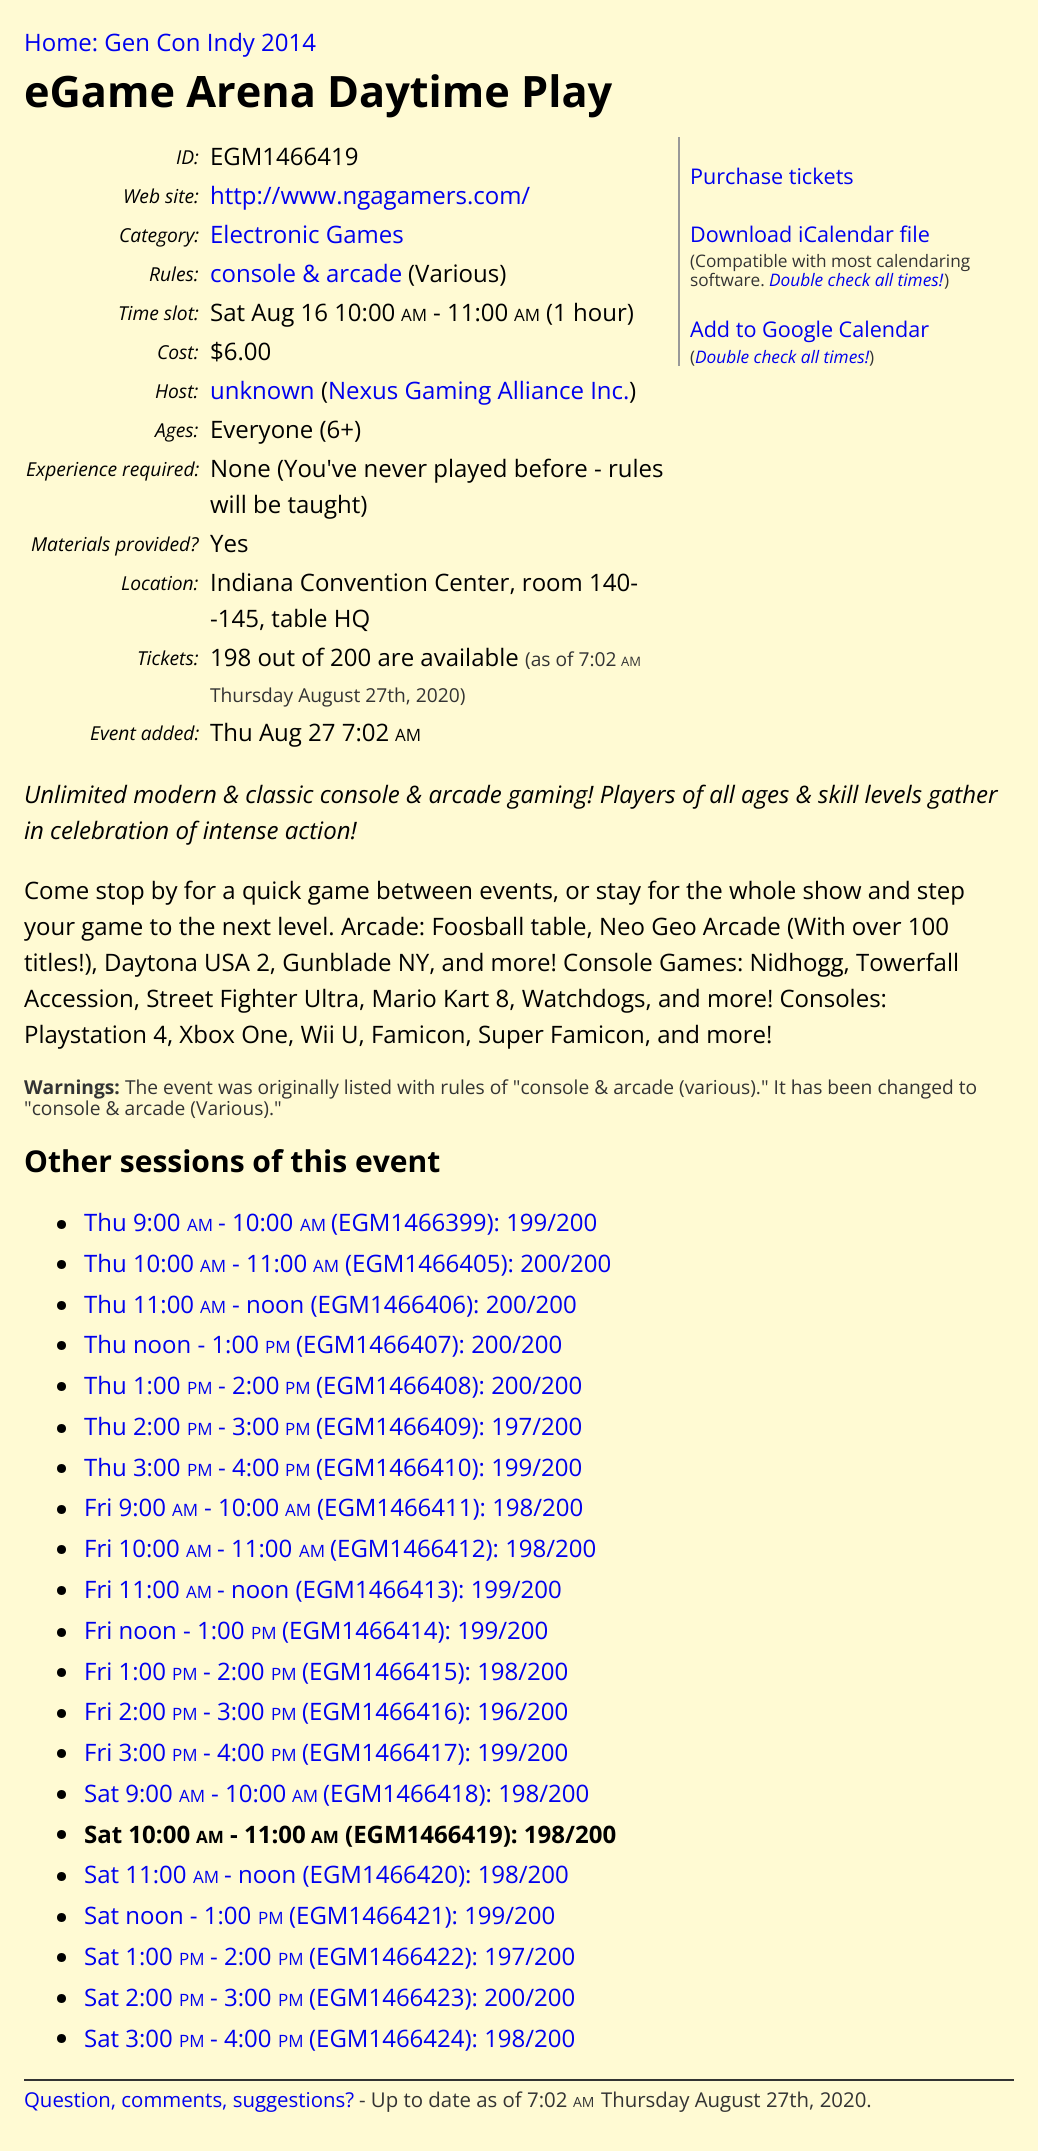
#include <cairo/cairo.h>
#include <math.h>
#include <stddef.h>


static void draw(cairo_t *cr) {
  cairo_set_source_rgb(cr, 1, 250 / 255.0, 211 / 255.0);
  cairo_paint(cr);
  cairo_set_source_rgb(cr, 153 / 255.0, 153 / 255.0, 153 / 255.0);
  cairo_rectangle(cr, 678, 137, 2, 229);
  cairo_fill(cr);
  cairo_set_source_rgb(cr, 0, 0, 0);
  cairo_arc(cr, 61.5, 1224.5, 4.5, 0, 2 * M_PI);
  cairo_fill(cr);
  cairo_arc(cr, 61.5, 1264.5, 4.5, 0, 2 * M_PI);
  cairo_fill(cr);
  cairo_arc(cr, 61.5, 1305.5, 4.5, 0, 2 * M_PI);
  cairo_fill(cr);
  cairo_arc(cr, 61.5, 1345.5, 4.5, 0, 2 * M_PI);
  cairo_fill(cr);
  cairo_arc(cr, 61.5, 1386.5, 4.5, 0, 2 * M_PI);
  cairo_fill(cr);
  cairo_arc(cr, 61.5, 1428.5, 4.5, 0, 2 * M_PI);
  cairo_fill(cr);
  cairo_arc(cr, 61.5, 1468.5, 4.5, 0, 2 * M_PI);
  cairo_fill(cr);
  cairo_arc(cr, 61.5, 1509.5, 4.5, 0, 2 * M_PI);
  cairo_fill(cr);
  cairo_arc(cr, 61.5, 1549.5, 4.5, 0, 2 * M_PI);
  cairo_fill(cr);
  cairo_arc(cr, 61.5, 1590.5, 4.5, 0, 2 * M_PI);
  cairo_fill(cr);
  cairo_arc(cr, 61.5, 1632.5, 4.5, 0, 2 * M_PI);
  cairo_fill(cr);
  cairo_arc(cr, 61.5, 1672.5, 4.5, 0, 2 * M_PI);
  cairo_fill(cr);
  cairo_arc(cr, 61.5, 1713.5, 4.5, 0, 2 * M_PI);
  cairo_fill(cr);
  cairo_arc(cr, 61.5, 1753.5, 4.5, 0, 2 * M_PI);
  cairo_fill(cr);
  cairo_arc(cr, 61.5, 1794.5, 4.5, 0, 2 * M_PI);
  cairo_fill(cr);
  cairo_arc(cr, 61.5, 1834.5, 4.5, 0, 2 * M_PI);
  cairo_fill(cr);
  cairo_arc(cr, 61.5, 1876.5, 4.5, 0, 2 * M_PI);
  cairo_fill(cr);
  cairo_arc(cr, 61.5, 1917.5, 4.5, 0, 2 * M_PI);
  cairo_fill(cr);
  cairo_arc(cr, 61.5, 1957.5, 4.5, 0, 2 * M_PI);
  cairo_fill(cr);
  cairo_arc(cr, 61.5, 1998.5, 4.5, 0, 2 * M_PI);
  cairo_fill(cr);
  cairo_arc(cr, 61.5, 2038.5, 4.5, 0, 2 * M_PI);
  cairo_fill(cr);
  cairo_set_source_rgb(cr, 51 / 255.0, 51 / 255.0, 51 / 255.0);
  cairo_rectangle(cr, 24, 2079, 990, 2);
  cairo_fill(cr);
  cairo_select_font_face(cr, "Open Sans", CAIRO_FONT_SLANT_NORMAL, CAIRO_FONT_WEIGHT_NORMAL);
  cairo_set_font_size(cr, 24);
  cairo_set_source_rgb(cr, 0, 0, 238 / 255.0);
  cairo_move_to(cr, 24, 51);
  cairo_show_text(cr, "Home: Gen Con Indy 2014");
  cairo_select_font_face(cr, "Open Sans", CAIRO_FONT_SLANT_NORMAL, CAIRO_FONT_WEIGHT_BOLD);
  cairo_set_font_size(cr, 43.25);
  cairo_set_source_rgb(cr, 0, 0, 0);
  cairo_move_to(cr, 24, 107);
  cairo_show_text(cr, "eGame Arena Daytime Play");
  cairo_select_font_face(cr, "Open Sans", CAIRO_FONT_SLANT_ITALIC, CAIRO_FONT_WEIGHT_NORMAL);
  cairo_set_font_size(cr, 19.2);
  cairo_move_to(cr, 176, 164);
  cairo_show_text(cr, "ID:");
  cairo_select_font_face(cr, "Open Sans", CAIRO_FONT_SLANT_NORMAL, CAIRO_FONT_WEIGHT_NORMAL);
  cairo_set_font_size(cr, 24);
  cairo_move_to(cr, 210, 165);
  cairo_show_text(cr, "EGM1466419");
  cairo_select_font_face(cr, "Open Sans", CAIRO_FONT_SLANT_ITALIC, CAIRO_FONT_WEIGHT_NORMAL);
  cairo_set_font_size(cr, 19.2);
  cairo_move_to(cr, 123, 203);
  cairo_show_text(cr, "Web site:");
  cairo_select_font_face(cr, "Open Sans", CAIRO_FONT_SLANT_NORMAL, CAIRO_FONT_WEIGHT_NORMAL);
  cairo_set_font_size(cr, 24);
  cairo_set_source_rgb(cr, 0, 0, 238 / 255.0);
  cairo_move_to(cr, 210, 204);
  cairo_show_text(cr, "http://www.ngagamers.com/");
  cairo_select_font_face(cr, "Open Sans", CAIRO_FONT_SLANT_ITALIC, CAIRO_FONT_WEIGHT_NORMAL);
  cairo_set_font_size(cr, 19.2);
  cairo_set_source_rgb(cr, 0, 0, 0);
  cairo_move_to(cr, 119, 242);
  cairo_show_text(cr, "Category:");
  cairo_select_font_face(cr, "Open Sans", CAIRO_FONT_SLANT_NORMAL, CAIRO_FONT_WEIGHT_NORMAL);
  cairo_set_font_size(cr, 24);
  cairo_set_source_rgb(cr, 0, 0, 238 / 255.0);
  cairo_move_to(cr, 210, 243);
  cairo_show_text(cr, "Electronic Games");
  cairo_select_font_face(cr, "Open Sans", CAIRO_FONT_SLANT_ITALIC, CAIRO_FONT_WEIGHT_NORMAL);
  cairo_set_font_size(cr, 19.2);
  cairo_set_source_rgb(cr, 0, 0, 0);
  cairo_move_to(cr, 149, 281);
  cairo_show_text(cr, "Rules:");
  cairo_select_font_face(cr, "Open Sans", CAIRO_FONT_SLANT_NORMAL, CAIRO_FONT_WEIGHT_NORMAL);
  cairo_set_font_size(cr, 24);
  cairo_set_source_rgb(cr, 0, 0, 238 / 255.0);
  cairo_move_to(cr, 210, 282);
  cairo_show_text(cr, "console & arcade");
  cairo_set_source_rgb(cr, 0, 0, 0);
  cairo_move_to(cr, 408, 282);
  cairo_show_text(cr, "(Various)");
  cairo_select_font_face(cr, "Open Sans", CAIRO_FONT_SLANT_ITALIC, CAIRO_FONT_WEIGHT_NORMAL);
  cairo_set_font_size(cr, 19.2);
  cairo_move_to(cr, 118, 320);
  cairo_show_text(cr, "Time slot:");
  cairo_select_font_face(cr, "Open Sans", CAIRO_FONT_SLANT_NORMAL, CAIRO_FONT_WEIGHT_NORMAL);
  cairo_set_font_size(cr, 24);
  cairo_move_to(cr, 210, 321);
  cairo_show_text(cr, "Sat Aug 16 10:00");
  cairo_set_font_size(cr, 17);
  cairo_move_to(cr, 401, 321);
  cairo_show_text(cr, "AM");
  cairo_set_font_size(cr, 24);
  cairo_move_to(cr, 433, 321);
  cairo_show_text(cr, "- 11:00");
  cairo_set_font_size(cr, 17);
  cairo_move_to(cr, 514, 321);
  cairo_show_text(cr, "AM");
  cairo_set_font_size(cr, 24);
  cairo_move_to(cr, 546, 321);
  cairo_show_text(cr, "(1 hour)");
  cairo_select_font_face(cr, "Open Sans", CAIRO_FONT_SLANT_ITALIC, CAIRO_FONT_WEIGHT_NORMAL);
  cairo_set_font_size(cr, 19.2);
  cairo_move_to(cr, 157, 359);
  cairo_show_text(cr, "Cost:");
  cairo_select_font_face(cr, "Open Sans", CAIRO_FONT_SLANT_NORMAL, CAIRO_FONT_WEIGHT_NORMAL);
  cairo_set_font_size(cr, 24);
  cairo_move_to(cr, 210, 360);
  cairo_show_text(cr, "$6.00");
  cairo_select_font_face(cr, "Open Sans", CAIRO_FONT_SLANT_ITALIC, CAIRO_FONT_WEIGHT_NORMAL);
  cairo_set_font_size(cr, 19.2);
  cairo_move_to(cr, 155, 398);
  cairo_show_text(cr, "Host:");
  cairo_select_font_face(cr, "Open Sans", CAIRO_FONT_SLANT_NORMAL, CAIRO_FONT_WEIGHT_NORMAL);
  cairo_set_font_size(cr, 24);
  cairo_set_source_rgb(cr, 0, 0, 238 / 255.0);
  cairo_move_to(cr, 210, 399);
  cairo_show_text(cr, "unknown");
  cairo_set_source_rgb(cr, 0, 0, 0);
  cairo_move_to(cr, 321, 399);
  cairo_show_text(cr, "(");
  cairo_set_source_rgb(cr, 0, 0, 238 / 255.0);
  cairo_move_to(cr, 328, 399);
  cairo_show_text(cr, "Nexus Gaming Alliance Inc.");
  cairo_set_source_rgb(cr, 0, 0, 0);
  cairo_move_to(cr, 629, 399);
  cairo_show_text(cr, ")");
  cairo_select_font_face(cr, "Open Sans", CAIRO_FONT_SLANT_ITALIC, CAIRO_FONT_WEIGHT_NORMAL);
  cairo_set_font_size(cr, 19.2);
  cairo_move_to(cr, 155, 437);
  cairo_show_text(cr, "Ages:");
  cairo_select_font_face(cr, "Open Sans", CAIRO_FONT_SLANT_NORMAL, CAIRO_FONT_WEIGHT_NORMAL);
  cairo_set_font_size(cr, 24);
  cairo_move_to(cr, 210, 438);
  cairo_show_text(cr, "Everyone (6+)");
  cairo_select_font_face(cr, "Open Sans", CAIRO_FONT_SLANT_ITALIC, CAIRO_FONT_WEIGHT_NORMAL);
  cairo_set_font_size(cr, 19.2);
  cairo_move_to(cr, 26, 476);
  cairo_show_text(cr, "Experience required:");
  cairo_select_font_face(cr, "Open Sans", CAIRO_FONT_SLANT_NORMAL, CAIRO_FONT_WEIGHT_NORMAL);
  cairo_set_font_size(cr, 24);
  cairo_move_to(cr, 210, 477);
  cairo_show_text(cr, "None (You've never played before - rules");
  cairo_move_to(cr, 210, 513);
  cairo_show_text(cr, "will be taught)");
  cairo_select_font_face(cr, "Open Sans", CAIRO_FONT_SLANT_ITALIC, CAIRO_FONT_WEIGHT_NORMAL);
  cairo_set_font_size(cr, 19.2);
  cairo_move_to(cr, 31, 551);
  cairo_show_text(cr, "Materials provided?");
  cairo_select_font_face(cr, "Open Sans", CAIRO_FONT_SLANT_NORMAL, CAIRO_FONT_WEIGHT_NORMAL);
  cairo_set_font_size(cr, 24);
  cairo_move_to(cr, 210, 552);
  cairo_show_text(cr, "Yes");
  cairo_select_font_face(cr, "Open Sans", CAIRO_FONT_SLANT_ITALIC, CAIRO_FONT_WEIGHT_NORMAL);
  cairo_set_font_size(cr, 19.2);
  cairo_move_to(cr, 121, 590);
  cairo_show_text(cr, "Location:");
  cairo_select_font_face(cr, "Open Sans", CAIRO_FONT_SLANT_NORMAL, CAIRO_FONT_WEIGHT_NORMAL);
  cairo_set_font_size(cr, 24);
  cairo_move_to(cr, 210, 591);
  cairo_show_text(cr, "Indiana Convention Center, room 140-");
  cairo_move_to(cr, 210, 627);
  cairo_show_text(cr, "-145, table HQ");
  cairo_select_font_face(cr, "Open Sans", CAIRO_FONT_SLANT_ITALIC, CAIRO_FONT_WEIGHT_NORMAL);
  cairo_set_font_size(cr, 19.2);
  cairo_move_to(cr, 137, 665);
  cairo_show_text(cr, "Tickets:");
  cairo_select_font_face(cr, "Open Sans", CAIRO_FONT_SLANT_NORMAL, CAIRO_FONT_WEIGHT_NORMAL);
  cairo_set_font_size(cr, 24);
  cairo_move_to(cr, 210, 666);
  cairo_show_text(cr, "198 out of 200 are available");
  cairo_set_font_size(cr, 19.2);
  cairo_set_source_rgb(cr, 51 / 255.0, 51 / 255.0, 51 / 255.0);
  cairo_move_to(cr, 525, 666);
  cairo_show_text(cr, "(as of 7:02");
  cairo_set_font_size(cr, 13);
  cairo_move_to(cr, 621, 666);
  cairo_show_text(cr, "AM");
  cairo_set_font_size(cr, 19.2);
  cairo_move_to(cr, 210, 702);
  cairo_show_text(cr, "Thursday August 27th, 2020)");
  cairo_select_font_face(cr, "Open Sans", CAIRO_FONT_SLANT_ITALIC, CAIRO_FONT_WEIGHT_NORMAL);
  cairo_set_source_rgb(cr, 0, 0, 0);
  cairo_move_to(cr, 90, 740);
  cairo_show_text(cr, "Event added:");
  cairo_select_font_face(cr, "Open Sans", CAIRO_FONT_SLANT_NORMAL, CAIRO_FONT_WEIGHT_NORMAL);
  cairo_set_font_size(cr, 24);
  cairo_move_to(cr, 210, 741);
  cairo_show_text(cr, "Thu Aug 27 7:02");
  cairo_set_font_size(cr, 17);
  cairo_move_to(cr, 395, 741);
  cairo_show_text(cr, "AM");
  cairo_set_font_size(cr, 21.6);
  cairo_set_source_rgb(cr, 0, 0, 238 / 255.0);
  cairo_move_to(cr, 690, 184);
  cairo_show_text(cr, "Purchase tickets");
  cairo_move_to(cr, 690, 242);
  cairo_show_text(cr, "Download iCalendar file");
  cairo_set_font_size(cr, 17.25);
  cairo_set_source_rgb(cr, 51 / 255.0, 51 / 255.0, 51 / 255.0);
  cairo_move_to(cr, 690, 267);
  cairo_show_text(cr, "(Compatible with most calendaring");
  cairo_move_to(cr, 690, 286);
  cairo_show_text(cr, "software.");
  cairo_select_font_face(cr, "Open Sans", CAIRO_FONT_SLANT_ITALIC, CAIRO_FONT_WEIGHT_NORMAL);
  cairo_set_source_rgb(cr, 0, 0, 238 / 255.0);
  cairo_move_to(cr, 769, 286);
  cairo_show_text(cr, "Double check all times!");
  cairo_select_font_face(cr, "Open Sans", CAIRO_FONT_SLANT_NORMAL, CAIRO_FONT_WEIGHT_NORMAL);
  cairo_set_source_rgb(cr, 51 / 255.0, 51 / 255.0, 51 / 255.0);
  cairo_move_to(cr, 944, 286);
  cairo_show_text(cr, ")");
  cairo_set_font_size(cr, 21.6);
  cairo_set_source_rgb(cr, 0, 0, 238 / 255.0);
  cairo_move_to(cr, 690, 337);
  cairo_show_text(cr, "Add to Google Calendar");
  cairo_set_font_size(cr, 17.25);
  cairo_set_source_rgb(cr, 51 / 255.0, 51 / 255.0, 51 / 255.0);
  cairo_move_to(cr, 690, 363);
  cairo_show_text(cr, "(");
  cairo_select_font_face(cr, "Open Sans", CAIRO_FONT_SLANT_ITALIC, CAIRO_FONT_WEIGHT_NORMAL);
  cairo_set_source_rgb(cr, 0, 0, 238 / 255.0);
  cairo_move_to(cr, 695, 363);
  cairo_show_text(cr, "Double check all times!");
  cairo_select_font_face(cr, "Open Sans", CAIRO_FONT_SLANT_NORMAL, CAIRO_FONT_WEIGHT_NORMAL);
  cairo_set_source_rgb(cr, 51 / 255.0, 51 / 255.0, 51 / 255.0);
  cairo_move_to(cr, 869, 363);
  cairo_show_text(cr, ")");
  cairo_select_font_face(cr, "Open Sans", CAIRO_FONT_SLANT_ITALIC, CAIRO_FONT_WEIGHT_NORMAL);
  cairo_set_font_size(cr, 24);
  cairo_set_source_rgb(cr, 0, 0, 0);
  cairo_move_to(cr, 24, 803);
  cairo_show_text(cr, "Unlimited modern & classic console & arcade gaming! Players of all ages & skill levels gather");
  cairo_move_to(cr, 24, 839);
  cairo_show_text(cr, "in celebration of intense action!");
  cairo_select_font_face(cr, "Open Sans", CAIRO_FONT_SLANT_NORMAL, CAIRO_FONT_WEIGHT_NORMAL);
  cairo_move_to(cr, 24, 899);
  cairo_show_text(cr, "Come stop by for a quick game between events, or stay for the whole show and step");
  cairo_move_to(cr, 24, 935);
  cairo_show_text(cr, "your game to the next level. Arcade: Foosball table, Neo Geo Arcade (With over 100");
  cairo_move_to(cr, 24, 971);
  cairo_show_text(cr, "titles!), Daytona USA 2, Gunblade NY, and more! Console Games: Nidhogg, Towerfall");
  cairo_move_to(cr, 24, 1007);
  cairo_show_text(cr, "Accession, Street Fighter Ultra, Mario Kart 8, Watchdogs, and more! Consoles:");
  cairo_move_to(cr, 24, 1043);
  cairo_show_text(cr, "Playstation 4, Xbox One, Wii U, Famicon, Super Famicon, and more!");
  cairo_select_font_face(cr, "Open Sans", CAIRO_FONT_SLANT_NORMAL, CAIRO_FONT_WEIGHT_BOLD);
  cairo_set_font_size(cr, 19.2);
  cairo_set_source_rgb(cr, 51 / 255.0, 51 / 255.0, 51 / 255.0);
  cairo_move_to(cr, 24, 1094);
  cairo_show_text(cr, "Warnings:");
  cairo_select_font_face(cr, "Open Sans", CAIRO_FONT_SLANT_NORMAL, CAIRO_FONT_WEIGHT_NORMAL);
  cairo_move_to(cr, 125, 1094);
  cairo_show_text(cr, "The event was originally listed with rules of \"console & arcade (various).\" It has been changed to");
  cairo_move_to(cr, 24, 1115);
  cairo_show_text(cr, "\"console & arcade (Various).\"");
  cairo_select_font_face(cr, "Open Sans", CAIRO_FONT_SLANT_NORMAL, CAIRO_FONT_WEIGHT_BOLD);
  cairo_set_font_size(cr, 30);
  cairo_set_source_rgb(cr, 0, 0, 0);
  cairo_move_to(cr, 24, 1172);
  cairo_show_text(cr, "Other sessions of this event");
  cairo_select_font_face(cr, "Open Sans", CAIRO_FONT_SLANT_NORMAL, CAIRO_FONT_WEIGHT_NORMAL);
  cairo_set_font_size(cr, 24);
  cairo_set_source_rgb(cr, 0, 0, 238 / 255.0);
  cairo_move_to(cr, 84, 1231);
  cairo_show_text(cr, "Thu 9:00");
  cairo_set_font_size(cr, 17);
  cairo_move_to(cr, 187, 1231);
  cairo_show_text(cr, "AM");
  cairo_set_font_size(cr, 24);
  cairo_move_to(cr, 218, 1231);
  cairo_show_text(cr, "- 10:00");
  cairo_set_font_size(cr, 17);
  cairo_move_to(cr, 300, 1231);
  cairo_show_text(cr, "AM");
  cairo_set_font_size(cr, 24);
  cairo_move_to(cr, 331, 1231);
  cairo_show_text(cr, "(EGM1466399): 199/200");
  cairo_move_to(cr, 84, 1272);
  cairo_show_text(cr, "Thu 10:00");
  cairo_set_font_size(cr, 17);
  cairo_move_to(cr, 200, 1272);
  cairo_show_text(cr, "AM");
  cairo_set_font_size(cr, 24);
  cairo_move_to(cr, 232, 1272);
  cairo_show_text(cr, "- 11:00");
  cairo_set_font_size(cr, 17);
  cairo_move_to(cr, 313, 1272);
  cairo_show_text(cr, "AM");
  cairo_set_font_size(cr, 24);
  cairo_move_to(cr, 345, 1272);
  cairo_show_text(cr, "(EGM1466405): 200/200");
  cairo_move_to(cr, 84, 1313);
  cairo_show_text(cr, "Thu 11:00");
  cairo_set_font_size(cr, 17);
  cairo_move_to(cr, 200, 1313);
  cairo_show_text(cr, "AM");
  cairo_set_font_size(cr, 24);
  cairo_move_to(cr, 232, 1313);
  cairo_show_text(cr, "- noon (EGM1466406): 200/200");
  cairo_move_to(cr, 84, 1353);
  cairo_show_text(cr, "Thu noon - 1:00");
  cairo_set_font_size(cr, 17);
  cairo_move_to(cr, 265, 1353);
  cairo_show_text(cr, "PM");
  cairo_set_font_size(cr, 24);
  cairo_move_to(cr, 296, 1353);
  cairo_show_text(cr, "(EGM1466407): 200/200");
  cairo_move_to(cr, 84, 1394);
  cairo_show_text(cr, "Thu 1:00");
  cairo_set_font_size(cr, 17);
  cairo_move_to(cr, 187, 1394);
  cairo_show_text(cr, "PM");
  cairo_set_font_size(cr, 24);
  cairo_move_to(cr, 218, 1394);
  cairo_show_text(cr, "- 2:00");
  cairo_set_font_size(cr, 17);
  cairo_move_to(cr, 285, 1394);
  cairo_show_text(cr, "PM");
  cairo_set_font_size(cr, 24);
  cairo_move_to(cr, 316, 1394);
  cairo_show_text(cr, "(EGM1466408): 200/200");
  cairo_move_to(cr, 84, 1435);
  cairo_show_text(cr, "Thu 2:00");
  cairo_set_font_size(cr, 17);
  cairo_move_to(cr, 187, 1435);
  cairo_show_text(cr, "PM");
  cairo_set_font_size(cr, 24);
  cairo_move_to(cr, 218, 1435);
  cairo_show_text(cr, "- 3:00");
  cairo_set_font_size(cr, 17);
  cairo_move_to(cr, 285, 1435);
  cairo_show_text(cr, "PM");
  cairo_set_font_size(cr, 24);
  cairo_move_to(cr, 316, 1435);
  cairo_show_text(cr, "(EGM1466409): 197/200");
  cairo_move_to(cr, 84, 1476);
  cairo_show_text(cr, "Thu 3:00");
  cairo_set_font_size(cr, 17);
  cairo_move_to(cr, 187, 1476);
  cairo_show_text(cr, "PM");
  cairo_set_font_size(cr, 24);
  cairo_move_to(cr, 218, 1476);
  cairo_show_text(cr, "- 4:00");
  cairo_set_font_size(cr, 17);
  cairo_move_to(cr, 285, 1476);
  cairo_show_text(cr, "PM");
  cairo_set_font_size(cr, 24);
  cairo_move_to(cr, 316, 1476);
  cairo_show_text(cr, "(EGM1466410): 199/200");
  cairo_move_to(cr, 84, 1516);
  cairo_show_text(cr, "Fri 9:00");
  cairo_set_font_size(cr, 17);
  cairo_move_to(cr, 172, 1516);
  cairo_show_text(cr, "AM");
  cairo_set_font_size(cr, 24);
  cairo_move_to(cr, 204, 1516);
  cairo_show_text(cr, "- 10:00");
  cairo_set_font_size(cr, 17);
  cairo_move_to(cr, 285, 1516);
  cairo_show_text(cr, "AM");
  cairo_set_font_size(cr, 24);
  cairo_move_to(cr, 317, 1516);
  cairo_show_text(cr, "(EGM1466411): 198/200");
  cairo_move_to(cr, 84, 1557);
  cairo_show_text(cr, "Fri 10:00");
  cairo_set_font_size(cr, 17);
  cairo_move_to(cr, 186, 1557);
  cairo_show_text(cr, "AM");
  cairo_set_font_size(cr, 24);
  cairo_move_to(cr, 217, 1557);
  cairo_show_text(cr, "- 11:00");
  cairo_set_font_size(cr, 17);
  cairo_move_to(cr, 299, 1557);
  cairo_show_text(cr, "AM");
  cairo_set_font_size(cr, 24);
  cairo_move_to(cr, 330, 1557);
  cairo_show_text(cr, "(EGM1466412): 198/200");
  cairo_move_to(cr, 84, 1598);
  cairo_show_text(cr, "Fri 11:00");
  cairo_set_font_size(cr, 17);
  cairo_move_to(cr, 186, 1598);
  cairo_show_text(cr, "AM");
  cairo_set_font_size(cr, 24);
  cairo_move_to(cr, 217, 1598);
  cairo_show_text(cr, "- noon (EGM1466413): 199/200");
  cairo_move_to(cr, 84, 1639);
  cairo_show_text(cr, "Fri noon - 1:00");
  cairo_set_font_size(cr, 17);
  cairo_move_to(cr, 251, 1639);
  cairo_show_text(cr, "PM");
  cairo_set_font_size(cr, 24);
  cairo_move_to(cr, 282, 1639);
  cairo_show_text(cr, "(EGM1466414): 199/200");
  cairo_move_to(cr, 84, 1680);
  cairo_show_text(cr, "Fri 1:00");
  cairo_set_font_size(cr, 17);
  cairo_move_to(cr, 172, 1680);
  cairo_show_text(cr, "PM");
  cairo_set_font_size(cr, 24);
  cairo_move_to(cr, 203, 1680);
  cairo_show_text(cr, "- 2:00");
  cairo_set_font_size(cr, 17);
  cairo_move_to(cr, 271, 1680);
  cairo_show_text(cr, "PM");
  cairo_set_font_size(cr, 24);
  cairo_move_to(cr, 302, 1680);
  cairo_show_text(cr, "(EGM1466415): 198/200");
  cairo_move_to(cr, 84, 1720);
  cairo_show_text(cr, "Fri 2:00");
  cairo_set_font_size(cr, 17);
  cairo_move_to(cr, 172, 1720);
  cairo_show_text(cr, "PM");
  cairo_set_font_size(cr, 24);
  cairo_move_to(cr, 203, 1720);
  cairo_show_text(cr, "- 3:00");
  cairo_set_font_size(cr, 17);
  cairo_move_to(cr, 271, 1720);
  cairo_show_text(cr, "PM");
  cairo_set_font_size(cr, 24);
  cairo_move_to(cr, 302, 1720);
  cairo_show_text(cr, "(EGM1466416): 196/200");
  cairo_move_to(cr, 84, 1761);
  cairo_show_text(cr, "Fri 3:00");
  cairo_set_font_size(cr, 17);
  cairo_move_to(cr, 172, 1761);
  cairo_show_text(cr, "PM");
  cairo_set_font_size(cr, 24);
  cairo_move_to(cr, 203, 1761);
  cairo_show_text(cr, "- 4:00");
  cairo_set_font_size(cr, 17);
  cairo_move_to(cr, 271, 1761);
  cairo_show_text(cr, "PM");
  cairo_set_font_size(cr, 24);
  cairo_move_to(cr, 302, 1761);
  cairo_show_text(cr, "(EGM1466417): 199/200");
  cairo_move_to(cr, 84, 1802);
  cairo_show_text(cr, "Sat 9:00");
  cairo_set_font_size(cr, 17);
  cairo_move_to(cr, 179, 1802);
  cairo_show_text(cr, "AM");
  cairo_set_font_size(cr, 24);
  cairo_move_to(cr, 211, 1802);
  cairo_show_text(cr, "- 10:00");
  cairo_set_font_size(cr, 17);
  cairo_move_to(cr, 292, 1802);
  cairo_show_text(cr, "AM");
  cairo_set_font_size(cr, 24);
  cairo_move_to(cr, 323, 1802);
  cairo_show_text(cr, "(EGM1466418): 198/200");
  cairo_select_font_face(cr, "Open Sans", CAIRO_FONT_SLANT_NORMAL, CAIRO_FONT_WEIGHT_BOLD);
  cairo_set_source_rgb(cr, 0, 0, 0);
  cairo_move_to(cr, 84, 1843);
  cairo_show_text(cr, "Sat 10:00");
  cairo_set_font_size(cr, 17);
  cairo_move_to(cr, 196, 1843);
  cairo_show_text(cr, "AM");
  cairo_set_font_size(cr, 24);
  cairo_move_to(cr, 230, 1843);
  cairo_show_text(cr, "- 11:00");
  cairo_set_font_size(cr, 17);
  cairo_move_to(cr, 311, 1843);
  cairo_show_text(cr, "AM");
  cairo_set_font_size(cr, 24);
  cairo_move_to(cr, 345, 1843);
  cairo_show_text(cr, "(EGM1466419): 198/200");
  cairo_select_font_face(cr, "Open Sans", CAIRO_FONT_SLANT_NORMAL, CAIRO_FONT_WEIGHT_NORMAL);
  cairo_set_source_rgb(cr, 0, 0, 238 / 255.0);
  cairo_move_to(cr, 84, 1883);
  cairo_show_text(cr, "Sat 11:00");
  cairo_set_font_size(cr, 17);
  cairo_move_to(cr, 193, 1883);
  cairo_show_text(cr, "AM");
  cairo_set_font_size(cr, 24);
  cairo_move_to(cr, 224, 1883);
  cairo_show_text(cr, "- noon (EGM1466420): 198/200");
  cairo_move_to(cr, 84, 1924);
  cairo_show_text(cr, "Sat noon - 1:00");
  cairo_set_font_size(cr, 17);
  cairo_move_to(cr, 258, 1924);
  cairo_show_text(cr, "PM");
  cairo_set_font_size(cr, 24);
  cairo_move_to(cr, 289, 1924);
  cairo_show_text(cr, "(EGM1466421): 199/200");
  cairo_move_to(cr, 84, 1965);
  cairo_show_text(cr, "Sat 1:00");
  cairo_set_font_size(cr, 17);
  cairo_move_to(cr, 179, 1965);
  cairo_show_text(cr, "PM");
  cairo_set_font_size(cr, 24);
  cairo_move_to(cr, 210, 1965);
  cairo_show_text(cr, "- 2:00");
  cairo_set_font_size(cr, 17);
  cairo_move_to(cr, 278, 1965);
  cairo_show_text(cr, "PM");
  cairo_set_font_size(cr, 24);
  cairo_move_to(cr, 309, 1965);
  cairo_show_text(cr, "(EGM1466422): 197/200");
  cairo_move_to(cr, 84, 2006);
  cairo_show_text(cr, "Sat 2:00");
  cairo_set_font_size(cr, 17);
  cairo_move_to(cr, 179, 2006);
  cairo_show_text(cr, "PM");
  cairo_set_font_size(cr, 24);
  cairo_move_to(cr, 210, 2006);
  cairo_show_text(cr, "- 3:00");
  cairo_set_font_size(cr, 17);
  cairo_move_to(cr, 278, 2006);
  cairo_show_text(cr, "PM");
  cairo_set_font_size(cr, 24);
  cairo_move_to(cr, 309, 2006);
  cairo_show_text(cr, "(EGM1466423): 200/200");
  cairo_move_to(cr, 84, 2047);
  cairo_show_text(cr, "Sat 3:00");
  cairo_set_font_size(cr, 17);
  cairo_move_to(cr, 179, 2047);
  cairo_show_text(cr, "PM");
  cairo_set_font_size(cr, 24);
  cairo_move_to(cr, 210, 2047);
  cairo_show_text(cr, "- 4:00");
  cairo_set_font_size(cr, 17);
  cairo_move_to(cr, 278, 2047);
  cairo_show_text(cr, "PM");
  cairo_set_font_size(cr, 24);
  cairo_move_to(cr, 309, 2047);
  cairo_show_text(cr, "(EGM1466424): 198/200");
  cairo_set_font_size(cr, 20.4);
  cairo_move_to(cr, 24, 2107);
  cairo_show_text(cr, "Question, comments, suggestions?");
  cairo_set_source_rgb(cr, 51 / 255.0, 51 / 255.0, 51 / 255.0);
  cairo_move_to(cr, 359, 2107);
  cairo_show_text(cr, "- Up to date as of 7:02");
  cairo_set_font_size(cr, 14);
  cairo_move_to(cr, 573, 2107);
  cairo_show_text(cr, "AM");
  cairo_set_font_size(cr, 20.4);
  cairo_move_to(cr, 601, 2107);
  cairo_show_text(cr, "Thursday August 27th, 2020.");
}

int main(void) {
  cairo_surface_t *surface = cairo_image_surface_create(CAIRO_FORMAT_RGB24, 1038, 2151);
  cairo_t *cr = cairo_create(surface);
  cairo_font_options_t *options = cairo_font_options_create();
  cairo_font_options_set_hint_metrics(options, CAIRO_HINT_METRICS_OFF);
  cairo_font_options_set_hint_style(options, CAIRO_HINT_STYLE_NONE);
  cairo_set_font_options(cr, options);
  cairo_set_miter_limit(cr, 4);
  draw(cr);
  cairo_surface_write_to_png(surface, "out.png");
  cairo_font_options_destroy(options);
  cairo_destroy(cr);
  cairo_surface_destroy(surface);
  return 0;
}
